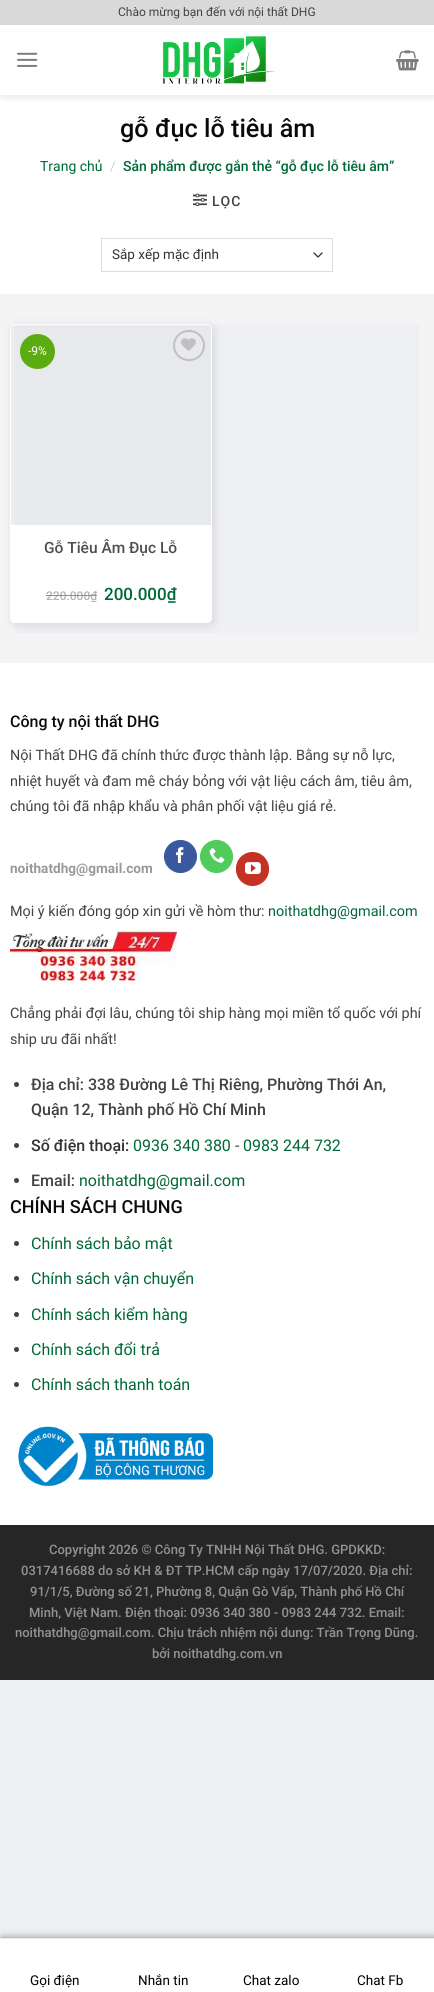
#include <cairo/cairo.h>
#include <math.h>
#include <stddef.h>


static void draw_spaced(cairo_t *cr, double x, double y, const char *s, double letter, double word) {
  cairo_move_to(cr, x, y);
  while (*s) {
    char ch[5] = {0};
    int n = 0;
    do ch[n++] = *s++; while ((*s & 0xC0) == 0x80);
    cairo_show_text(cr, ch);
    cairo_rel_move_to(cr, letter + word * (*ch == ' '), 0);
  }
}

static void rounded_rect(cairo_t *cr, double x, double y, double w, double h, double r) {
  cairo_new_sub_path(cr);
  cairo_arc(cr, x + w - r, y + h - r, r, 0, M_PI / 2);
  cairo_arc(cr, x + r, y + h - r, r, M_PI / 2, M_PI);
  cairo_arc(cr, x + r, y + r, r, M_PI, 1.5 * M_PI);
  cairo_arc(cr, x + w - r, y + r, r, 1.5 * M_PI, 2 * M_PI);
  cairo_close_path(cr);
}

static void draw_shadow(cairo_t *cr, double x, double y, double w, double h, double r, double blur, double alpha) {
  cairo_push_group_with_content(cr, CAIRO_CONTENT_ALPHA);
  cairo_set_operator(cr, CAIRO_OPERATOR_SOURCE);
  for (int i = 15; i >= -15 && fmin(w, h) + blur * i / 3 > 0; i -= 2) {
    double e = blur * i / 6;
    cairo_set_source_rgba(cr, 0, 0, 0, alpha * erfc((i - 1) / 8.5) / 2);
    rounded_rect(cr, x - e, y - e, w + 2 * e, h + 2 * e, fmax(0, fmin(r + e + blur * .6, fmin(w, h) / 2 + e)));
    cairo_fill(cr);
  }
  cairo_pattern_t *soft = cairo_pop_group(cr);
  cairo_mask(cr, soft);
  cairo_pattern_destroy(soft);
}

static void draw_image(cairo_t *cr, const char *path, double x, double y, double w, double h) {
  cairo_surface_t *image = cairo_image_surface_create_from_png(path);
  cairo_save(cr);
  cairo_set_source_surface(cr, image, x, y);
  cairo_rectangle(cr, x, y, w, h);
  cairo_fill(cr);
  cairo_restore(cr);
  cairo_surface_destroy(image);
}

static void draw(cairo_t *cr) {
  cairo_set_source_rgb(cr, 239 / 255.0, 240 / 255.0, 243 / 255.0);
  cairo_paint(cr);
  cairo_set_source_rgb(cr, 1, 1, 1);
  cairo_rectangle(cr, 0, 25, 434, 1500);
  cairo_fill(cr);
  cairo_save(cr);
  cairo_rectangle(cr, 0, 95, 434, 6);
  cairo_clip(cr);
  cairo_set_source_rgb(cr, 0, 0, 0);
  draw_shadow(cr, 2, 2, 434, 95, 0, 5, 0.1);
  cairo_restore(cr);
  cairo_set_source_rgb(cr, 217 / 255.0, 217 / 255.0, 217 / 255.0);
  cairo_rectangle(cr, 0, 0, 434, 25);
  cairo_fill(cr);
  draw_image(cr, "images/1.png", 17, 52, 21, 15);
  draw_image(cr, "images/2.png", 161, 36, 115, 48);
  draw_image(cr, "images/3.png", 396, 50, 23, 21);
  draw_image(cr, "images/4.png", 193, 193, 14, 13);
  cairo_new_path(cr);
  cairo_move_to(cr, 314, 253);
  cairo_line_to(cr, 318, 257);
  cairo_line_to(cr, 322, 253);
  cairo_set_source_rgb(cr, 51 / 255.0, 51 / 255.0, 51 / 255.0);
  cairo_set_line_width(cr, 1.3);
  cairo_set_line_cap(cr, CAIRO_LINE_CAP_ROUND);
  cairo_set_line_join(cr, CAIRO_LINE_JOIN_ROUND);
  cairo_stroke(cr);
  cairo_rectangle(cr, 101.5, 238.5, 231, 33);
  cairo_set_source_rgb(cr, 221 / 255.0, 221 / 255.0, 221 / 255.0);
  cairo_set_line_width(cr, 1);
  cairo_set_line_cap(cr, CAIRO_LINE_CAP_BUTT);
  cairo_set_line_join(cr, CAIRO_LINE_JOIN_MITER);
  cairo_stroke(cr);
  cairo_set_source_rgb(cr, 244 / 255.0, 244 / 255.0, 244 / 255.0);
  cairo_rectangle(cr, 0, 294, 434, 369);
  cairo_fill(cr);
  cairo_set_source_rgb(cr, 239 / 255.0, 240 / 255.0, 243 / 255.0);
  cairo_rectangle(cr, 15, 324, 404, 309);
  cairo_fill(cr);
  cairo_save(cr);
  cairo_set_fill_rule(cr, CAIRO_FILL_RULE_EVEN_ODD);
  cairo_new_path(cr);
  cairo_move_to(cr, 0, 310);
  cairo_line_to(cr, 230, 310);
  cairo_line_to(cr, 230, 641);
  cairo_line_to(cr, 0, 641);
  cairo_close_path(cr);
  cairo_move_to(cr, 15, 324);
  cairo_line_to(cr, 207, 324);
  cairo_curve_to(cr, 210, 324, 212, 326, 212, 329);
  cairo_line_to(cr, 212, 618);
  cairo_curve_to(cr, 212, 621, 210, 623, 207, 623);
  cairo_line_to(cr, 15, 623);
  cairo_curve_to(cr, 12, 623, 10, 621, 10, 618);
  cairo_line_to(cr, 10, 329);
  cairo_curve_to(cr, 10, 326, 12, 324, 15, 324);
  cairo_close_path(cr);
  cairo_clip(cr);
  cairo_set_source_rgb(cr, 0, 0, 0);
  draw_shadow(cr, 12, 326, 202, 299, 5, 5, 0.11);
  cairo_restore(cr);
  rounded_rect(cr, 10.5, 324.5, 201, 298, 4.5);
  cairo_set_source_rgb(cr, 1, 1, 1);
  cairo_stroke(cr);
  cairo_set_source_rgba(cr, 0, 0, 0, 0.03);
  cairo_rectangle(cr, 11, 325, 200, 200);
  cairo_fill(cr);
  cairo_set_source_rgb(cr, 92 / 255.0, 171 / 255.0, 16 / 255.0);
  cairo_arc(cr, 37.5, 351.5, 17.5, 0, 2 * M_PI);
  cairo_fill(cr);
  rounded_rect(cr, 174, 331, 30, 29, 14.5);
  cairo_set_source_rgb(cr, 192 / 255.0, 192 / 255.0, 192 / 255.0);
  cairo_set_line_width(cr, 2);
  cairo_stroke(cr);
  draw_image(cr, "images/5.png", 181, 338, 15, 13);
  cairo_set_source_rgb(cr, 1, 1, 1);
  cairo_new_path(cr);
  cairo_move_to(cr, 11, 525);
  cairo_line_to(cr, 211, 525);
  cairo_line_to(cr, 211, 617);
  cairo_curve_to(cr, 211, 620, 209, 622, 206, 622);
  cairo_line_to(cr, 16, 622);
  cairo_curve_to(cr, 13, 622, 11, 620, 11, 617);
  cairo_close_path(cr);
  cairo_fill(cr);
  cairo_set_source_rgb(cr, 58 / 255.0, 88 / 255.0, 157 / 255.0);
  cairo_arc(cr, 180.5, 856.5, 16, 0, 2 * M_PI);
  cairo_fill_preserve(cr);
  cairo_set_line_width(cr, 1);
  cairo_stroke(cr);
  draw_image(cr, "images/6.png", 175, 847, 9, 16);
  cairo_set_source_rgb(cr, 81 / 255.0, 203 / 255.0, 90 / 255.0);
  cairo_arc(cr, 216.5, 856.5, 16, 0, 2 * M_PI);
  cairo_fill_preserve(cr);
  cairo_stroke(cr);
  draw_image(cr, "images/7.png", 209, 848, 16, 15);
  cairo_set_source_rgb(cr, 195 / 255.0, 50 / 255.0, 35 / 255.0);
  rounded_rect(cr, 236.5, 852.5, 32, 33, 16);
  cairo_fill_preserve(cr);
  cairo_stroke(cr);
  draw_image(cr, "images/8.png", 245, 862, 16, 12);
  draw_image(cr, "images/9.png", 10, 927, 167, 57);
  cairo_set_source_rgb(cr, 66 / 255.0, 66 / 255.0, 66 / 255.0);
  cairo_arc(cr, 16.5, 1084.5, 2.5, 0, 2 * M_PI);
  cairo_fill(cr);
  cairo_arc(cr, 16.5, 1145.5, 2.5, 0, 2 * M_PI);
  cairo_fill(cr);
  cairo_arc(cr, 16.5, 1180.5, 2.5, 0, 2 * M_PI);
  cairo_fill(cr);
  cairo_arc(cr, 16.5, 1243.5, 2.5, 0, 2 * M_PI);
  cairo_fill(cr);
  cairo_arc(cr, 16.5, 1278.5, 2.5, 0, 2 * M_PI);
  cairo_fill(cr);
  cairo_arc(cr, 16.5, 1314.5, 2.5, 0, 2 * M_PI);
  cairo_fill(cr);
  cairo_arc(cr, 16.5, 1349.5, 2.5, 0, 2 * M_PI);
  cairo_fill(cr);
  cairo_arc(cr, 16.5, 1384.5, 2.5, 0, 2 * M_PI);
  cairo_fill(cr);
  draw_image(cr, "images/10.png", 10, 1418, 203, 76);
  cairo_set_source_rgb(cr, 38 / 255.0, 38 / 255.0, 38 / 255.0);
  cairo_rectangle(cr, 0, 1525, 434, 155);
  cairo_fill(cr);
  cairo_set_source_rgb(cr, 0, 0, 0);
  draw_shadow(cr, 2, 1939, 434, 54, 0, 4.5, 0.54);
  cairo_set_source_rgb(cr, 1, 1, 1);
  cairo_rectangle(cr, 0, 1939, 434, 53);
  cairo_fill(cr);
  cairo_set_source_rgb(cr, 234 / 255.0, 234 / 255.0, 234 / 255.0);
  cairo_rectangle(cr, 0, 1938, 434, 1);
  cairo_fill(cr);
  cairo_select_font_face(cr, "Roboto", CAIRO_FONT_SLANT_NORMAL, CAIRO_FONT_WEIGHT_NORMAL);
  cairo_set_font_size(cr, 12);
  cairo_set_source_rgb(cr, 66 / 255.0, 66 / 255.0, 66 / 255.0);
  cairo_move_to(cr, 118, 16);
  cairo_show_text(cr, "Chào mừng bạn đến với nội thất DHG");
  cairo_select_font_face(cr, "Roboto Medium", CAIRO_FONT_SLANT_NORMAL, CAIRO_FONT_WEIGHT_NORMAL);
  cairo_set_font_size(cr, 25.25);
  cairo_set_source_rgb(cr, 10 / 255.0, 10 / 255.0, 10 / 255.0);
  cairo_move_to(cr, 120, 137);
  cairo_show_text(cr, "gỗ đục lỗ tiêu âm");
  cairo_select_font_face(cr, "Roboto", CAIRO_FONT_SLANT_NORMAL, CAIRO_FONT_WEIGHT_NORMAL);
  cairo_set_font_size(cr, 14);
  cairo_set_source_rgb(cr, 0, 104 / 255.0, 55 / 255.0);
  cairo_move_to(cr, 40, 171);
  cairo_show_text(cr, "Trang chủ");
  cairo_select_font_face(cr, "Roboto Light", CAIRO_FONT_SLANT_NORMAL, CAIRO_FONT_WEIGHT_NORMAL);
  cairo_set_source_rgb(cr, 166 / 255.0, 202 / 255.0, 185 / 255.0);
  cairo_move_to(cr, 110, 171);
  cairo_show_text(cr, "/");
  cairo_select_font_face(cr, "Roboto Medium", CAIRO_FONT_SLANT_NORMAL, CAIRO_FONT_WEIGHT_NORMAL);
  cairo_set_source_rgb(cr, 0, 104 / 255.0, 55 / 255.0);
  cairo_move_to(cr, 123, 171);
  cairo_show_text(cr, "Sản phẩm được gắn thẻ “gỗ đục lỗ tiêu âm”");
  cairo_set_source_rgb(cr, 66 / 255.0, 66 / 255.0, 66 / 255.0);
  draw_spaced(cr, 212, 206, "LỌC", 1, 0);
  cairo_select_font_face(cr, "Roboto", CAIRO_FONT_SLANT_NORMAL, CAIRO_FONT_WEIGHT_NORMAL);
  cairo_set_font_size(cr, 13.5);
  cairo_set_source_rgb(cr, 51 / 255.0, 51 / 255.0, 51 / 255.0);
  cairo_move_to(cr, 112, 259);
  cairo_show_text(cr, "Sắp xếp mặc định");
  cairo_set_font_size(cr, 12);
  cairo_set_source_rgb(cr, 1, 1, 1);
  cairo_move_to(cr, 28, 355);
  cairo_show_text(cr, "-9%");
  cairo_select_font_face(cr, "Roboto Medium", CAIRO_FONT_SLANT_NORMAL, CAIRO_FONT_WEIGHT_NORMAL);
  cairo_set_font_size(cr, 15.5);
  cairo_set_source_rgb(cr, 78 / 255.0, 78 / 255.0, 78 / 255.0);
  cairo_move_to(cr, 44, 553);
  cairo_show_text(cr, "Gỗ Tiêu Âm Đục Lỗ");
  cairo_set_font_size(cr, 12);
  cairo_set_source_rgb(cr, 179 / 255.0, 179 / 255.0, 179 / 255.0);
  cairo_move_to(cr, 46, 600);
  cairo_show_text(cr, "220.000₫");
  cairo_set_source_rgb(cr, 142 / 255.0, 142 / 255.0, 142 / 255.0);
  cairo_rectangle(cr, 46, 595, 51, 1);
  cairo_fill(cr);
  cairo_set_font_size(cr, 17);
  cairo_set_source_rgb(cr, 0, 104 / 255.0, 55 / 255.0);
  cairo_move_to(cr, 104, 600);
  cairo_show_text(cr, "200.000₫");
  cairo_set_font_size(cr, 16);
  cairo_set_source_rgb(cr, 10 / 255.0, 10 / 255.0, 10 / 255.0);
  cairo_move_to(cr, 10, 727);
  cairo_show_text(cr, "Công ty nội thất DHG");
  cairo_select_font_face(cr, "Roboto", CAIRO_FONT_SLANT_NORMAL, CAIRO_FONT_WEIGHT_NORMAL);
  cairo_set_font_size(cr, 14.4);
  cairo_set_source_rgb(cr, 66 / 255.0, 66 / 255.0, 66 / 255.0);
  cairo_move_to(cr, 10, 760);
  cairo_show_text(cr, "Nội Thất DHG đã chính thức được thành lập. Bằng sự nỗ lực,");
  cairo_move_to(cr, 10, 786);
  cairo_show_text(cr, "nhiệt huyết và đam mê cháy bỏng với vật liệu cách âm, tiêu âm,");
  cairo_move_to(cr, 10, 811);
  cairo_show_text(cr, "chúng tôi đã nhập khẩu và phân phối vật liệu giá rẻ.");
  cairo_select_font_face(cr, "Roboto", CAIRO_FONT_SLANT_NORMAL, CAIRO_FONT_WEIGHT_BOLD);
  cairo_set_font_size(cr, 13.6);
  cairo_set_source_rgb(cr, 153 / 255.0, 153 / 255.0, 153 / 255.0);
  cairo_move_to(cr, 10, 873);
  cairo_show_text(cr, "noithatdhg@gmail.com");
  cairo_select_font_face(cr, "Roboto", CAIRO_FONT_SLANT_NORMAL, CAIRO_FONT_WEIGHT_NORMAL);
  cairo_set_font_size(cr, 14.4);
  cairo_set_source_rgb(cr, 66 / 255.0, 66 / 255.0, 66 / 255.0);
  cairo_move_to(cr, 10, 916);
  cairo_show_text(cr, "Mọi ý kiến đóng góp xin gửi về hòm thư:");
  cairo_set_source_rgb(cr, 0, 104 / 255.0, 55 / 255.0);
  cairo_move_to(cr, 268, 916);
  cairo_show_text(cr, "noithatdhg@gmail.com");
  cairo_set_source_rgb(cr, 66 / 255.0, 66 / 255.0, 66 / 255.0);
  cairo_move_to(cr, 10, 1018);
  cairo_show_text(cr, "Chẳng phải đợi lâu, chúng tôi ship hàng mọi miền tổ quốc với phí");
  cairo_move_to(cr, 10, 1044);
  cairo_show_text(cr, "ship ưu đãi nhất!");
  cairo_select_font_face(cr, "Roboto Medium", CAIRO_FONT_SLANT_NORMAL, CAIRO_FONT_WEIGHT_NORMAL);
  cairo_set_font_size(cr, 16);
  cairo_move_to(cr, 31, 1090);
  cairo_show_text(cr, "Địa chỉ: 338 Đường Lê Thị Riêng, Phường Thới An,");
  cairo_move_to(cr, 31, 1115);
  cairo_show_text(cr, "Quận 12, Thành phố Hồ Chí Minh");
  cairo_set_source_rgb(cr, 51 / 255.0, 51 / 255.0, 51 / 255.0);
  cairo_move_to(cr, 31, 1151);
  cairo_show_text(cr, "Số điện thoại:");
  cairo_select_font_face(cr, "Roboto", CAIRO_FONT_SLANT_NORMAL, CAIRO_FONT_WEIGHT_NORMAL);
  cairo_set_source_rgb(cr, 0, 104 / 255.0, 55 / 255.0);
  cairo_move_to(cr, 133, 1151);
  cairo_show_text(cr, "0936 340 380");
  cairo_set_source_rgb(cr, 66 / 255.0, 66 / 255.0, 66 / 255.0);
  cairo_move_to(cr, 235, 1151);
  cairo_show_text(cr, "-");
  cairo_set_source_rgb(cr, 0, 104 / 255.0, 55 / 255.0);
  cairo_move_to(cr, 243, 1151);
  cairo_show_text(cr, "0983 244 732");
  cairo_select_font_face(cr, "Roboto Medium", CAIRO_FONT_SLANT_NORMAL, CAIRO_FONT_WEIGHT_NORMAL);
  cairo_set_source_rgb(cr, 66 / 255.0, 66 / 255.0, 66 / 255.0);
  cairo_move_to(cr, 31, 1186);
  cairo_show_text(cr, "Email:");
  cairo_select_font_face(cr, "Roboto", CAIRO_FONT_SLANT_NORMAL, CAIRO_FONT_WEIGHT_NORMAL);
  cairo_set_source_rgb(cr, 0, 104 / 255.0, 55 / 255.0);
  cairo_move_to(cr, 79, 1186);
  cairo_show_text(cr, "noithatdhg@gmail.com");
  cairo_select_font_face(cr, "Roboto Medium", CAIRO_FONT_SLANT_NORMAL, CAIRO_FONT_WEIGHT_NORMAL);
  cairo_set_font_size(cr, 18);
  cairo_set_source_rgb(cr, 10 / 255.0, 10 / 255.0, 10 / 255.0);
  cairo_move_to(cr, 10, 1213);
  cairo_show_text(cr, "CHÍNH SÁCH CHUNG");
  cairo_select_font_face(cr, "Roboto", CAIRO_FONT_SLANT_NORMAL, CAIRO_FONT_WEIGHT_NORMAL);
  cairo_set_font_size(cr, 16);
  cairo_set_source_rgb(cr, 0, 104 / 255.0, 55 / 255.0);
  cairo_move_to(cr, 31, 1249);
  cairo_show_text(cr, "Chính sách bảo mật");
  cairo_move_to(cr, 31, 1284);
  cairo_show_text(cr, "Chính sách vận chuyển");
  cairo_move_to(cr, 31, 1320);
  cairo_show_text(cr, "Chính sách kiểm hàng");
  cairo_move_to(cr, 31, 1355);
  cairo_show_text(cr, "Chính sách đổi trả");
  cairo_move_to(cr, 31, 1390);
  cairo_show_text(cr, "Chính sách thanh toán");
  cairo_select_font_face(cr, "Roboto Medium", CAIRO_FONT_SLANT_NORMAL, CAIRO_FONT_WEIGHT_NORMAL);
  cairo_set_font_size(cr, 13);
  cairo_set_source_rgb(cr, 147 / 255.0, 147 / 255.0, 147 / 255.0);
  cairo_move_to(cr, 49, 1554);
  cairo_show_text(cr, "Copyright 2026 © Công Ty TNHH Nội Thất DHG. GPDKKD:");
  cairo_move_to(cr, 21, 1575);
  cairo_show_text(cr, "0317416688 do sở KH & ĐT TP.HCM cấp ngày 17/07/2020. Địa chỉ:");
  cairo_move_to(cr, 30, 1596);
  cairo_show_text(cr, "91/1/5, Đường số 21, Phường 8, Quận Gò Vấp, Thành phố Hồ Chí");
  cairo_move_to(cr, 29, 1617);
  cairo_show_text(cr, "Minh, Việt Nam. Điện thoại: 0936 340 380 - 0983 244 732. Email:");
  cairo_move_to(cr, 15, 1637);
  cairo_show_text(cr, "noithatdhg@gmail.com. Chịu trách nhiệm nội dung: Trần Trọng Dũng.");
  cairo_move_to(cr, 152, 1658);
  cairo_show_text(cr, "bởi noithatdhg.com.vn");
  cairo_select_font_face(cr, "Roboto", CAIRO_FONT_SLANT_NORMAL, CAIRO_FONT_WEIGHT_NORMAL);
  cairo_set_font_size(cr, 13.5);
  cairo_set_source_rgb(cr, 0, 0, 0);
  cairo_move_to(cr, 30, 1985);
  cairo_show_text(cr, "Gọi điện");
  cairo_move_to(cr, 138, 1985);
  cairo_show_text(cr, "Nhắn tin");
  cairo_move_to(cr, 243, 1985);
  cairo_show_text(cr, "Chat zalo");
  cairo_move_to(cr, 357, 1985);
  cairo_show_text(cr, "Chat Fb");
}

int main(void) {
  cairo_surface_t *surface = cairo_image_surface_create(CAIRO_FORMAT_RGB24, 434, 1992);
  cairo_t *cr = cairo_create(surface);
  cairo_font_options_t *options = cairo_font_options_create();
  cairo_font_options_set_hint_metrics(options, CAIRO_HINT_METRICS_OFF);
  cairo_font_options_set_hint_style(options, CAIRO_HINT_STYLE_NONE);
  cairo_set_font_options(cr, options);
  cairo_set_miter_limit(cr, 4);
  draw(cr);
  cairo_surface_write_to_png(surface, "out.png");
  cairo_font_options_destroy(options);
  cairo_destroy(cr);
  cairo_surface_destroy(surface);
  return 0;
}
